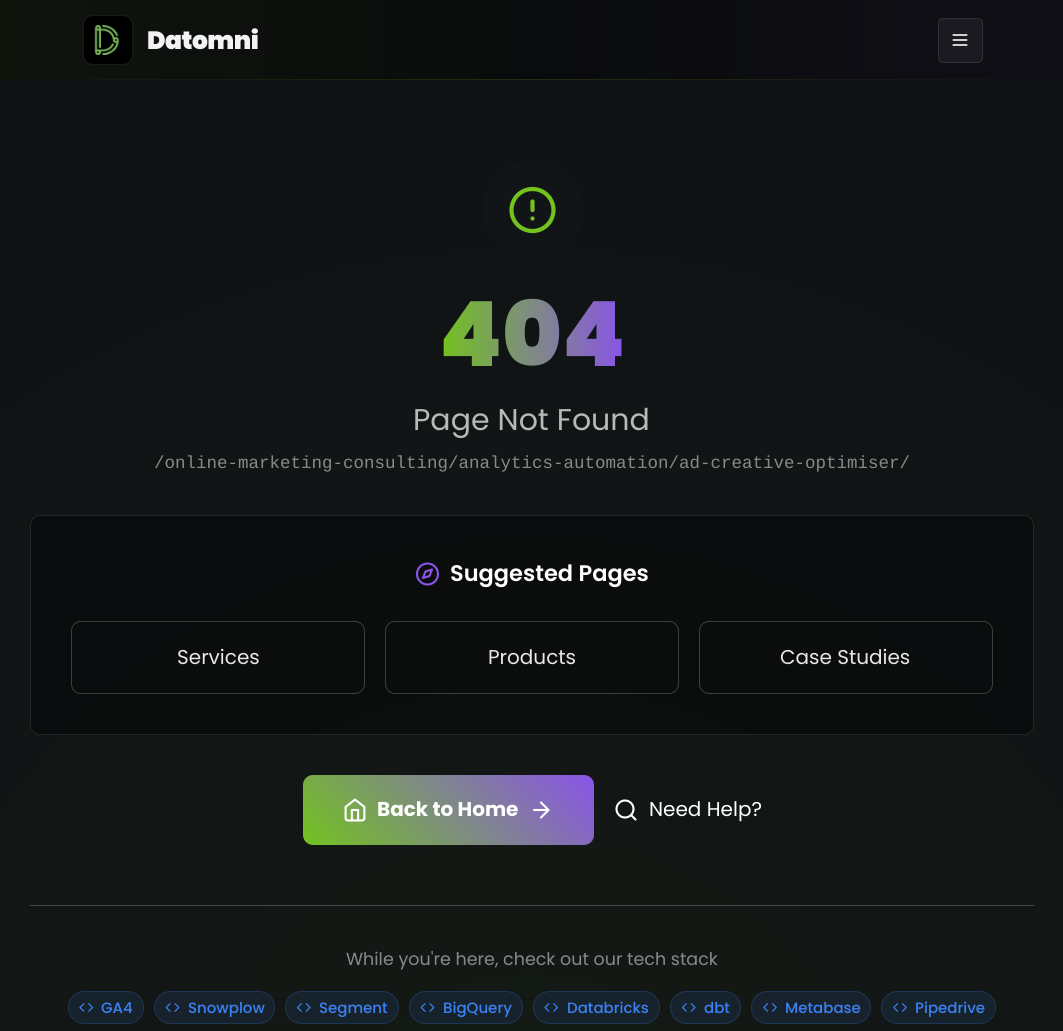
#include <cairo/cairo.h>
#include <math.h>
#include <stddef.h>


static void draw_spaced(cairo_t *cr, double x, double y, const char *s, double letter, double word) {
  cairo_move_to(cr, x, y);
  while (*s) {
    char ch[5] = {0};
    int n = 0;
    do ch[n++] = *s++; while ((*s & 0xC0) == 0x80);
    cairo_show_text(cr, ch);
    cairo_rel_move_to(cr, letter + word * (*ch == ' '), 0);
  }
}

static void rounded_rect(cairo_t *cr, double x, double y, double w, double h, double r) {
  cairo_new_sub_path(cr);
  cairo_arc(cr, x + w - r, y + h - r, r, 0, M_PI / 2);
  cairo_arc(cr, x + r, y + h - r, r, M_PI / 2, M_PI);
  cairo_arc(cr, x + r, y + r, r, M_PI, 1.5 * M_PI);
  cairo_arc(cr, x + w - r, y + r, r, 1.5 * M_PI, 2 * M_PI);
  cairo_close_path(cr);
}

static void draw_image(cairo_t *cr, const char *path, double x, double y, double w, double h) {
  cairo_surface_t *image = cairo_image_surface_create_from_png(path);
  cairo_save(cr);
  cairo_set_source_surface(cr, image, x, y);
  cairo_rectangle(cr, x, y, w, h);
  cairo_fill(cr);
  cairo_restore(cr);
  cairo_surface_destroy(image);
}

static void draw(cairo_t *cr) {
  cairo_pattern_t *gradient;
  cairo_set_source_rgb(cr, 1, 1, 1);
  cairo_paint(cr);
  gradient = cairo_pattern_create_linear(0, 40, 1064, 40);
  cairo_pattern_add_color_stop_rgba(gradient, 0, 15 / 255.0, 20 / 255.0, 13 / 255.0, 1);
  cairo_pattern_add_color_stop_rgba(gradient, 0.5, 10 / 255.0, 11 / 255.0, 12 / 255.0, 1);
  cairo_pattern_add_color_stop_rgba(gradient, 1, 16 / 255.0, 15 / 255.0, 23 / 255.0, 1);
  cairo_set_source(cr, gradient);
  cairo_pattern_destroy(gradient);
  cairo_rectangle(cr, 0, 0, 1063, 80);
  cairo_fill(cr);
  cairo_set_source_rgb(cr, 0, 0, 0);
  rounded_rect(cr, 83, 15, 50, 50, 10);
  cairo_fill(cr);
  rounded_rect(cr, 83.5, 15.5, 49, 49, 9.5);
  cairo_set_source_rgba(cr, 1, 1, 1, 0.1);
  cairo_set_line_width(cr, 1);
  cairo_stroke(cr);
  draw_image(cr, "images/1.png", 94, 25, 26, 30);
  cairo_set_source_rgb(cr, 27 / 255.0, 26 / 255.0, 33 / 255.0);
  rounded_rect(cr, 938, 18, 45, 45, 5);
  cairo_fill(cr);
  rounded_rect(cr, 938.5, 18.5, 44, 44, 4.5);
  cairo_set_source_rgba(cr, 1, 1, 1, 0.1);
  cairo_stroke(cr);
  draw_image(cr, "images/2.png", 952, 34, 16, 12);
  gradient = cairo_pattern_create_linear(0, 79, 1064, 79);
  cairo_pattern_add_color_stop_rgba(gradient, 0, 115 / 255.0, 194 / 255.0, 30 / 255.0, 0);
  cairo_pattern_add_color_stop_rgba(gradient, 0.5, 115 / 255.0, 194 / 255.0, 30 / 255.0, 0.2);
  cairo_pattern_add_color_stop_rgba(gradient, 1, 115 / 255.0, 194 / 255.0, 30 / 255.0, 0);
  cairo_set_source(cr, gradient);
  cairo_pattern_destroy(gradient);
  cairo_rectangle(cr, 57, 79, 950, 1);
  cairo_fill(cr);
  gradient = cairo_pattern_create_radial(532, 1193, 0, 532, 1193, 1306);
  cairo_pattern_add_color_stop_rgba(gradient, 0, 20 / 255.0, 26 / 255.0, 21 / 255.0, 1);
  cairo_pattern_add_color_stop_rgba(gradient, 1, 15 / 255.0, 17 / 255.0, 21 / 255.0, 1);
  cairo_set_source(cr, gradient);
  cairo_pattern_destroy(gradient);
  cairo_rectangle(cr, 0, 80, 1063, 951);
  cairo_fill(cr);
  cairo_set_source_rgb(cr, 18 / 255.0, 21 / 255.0, 24 / 255.0);
  cairo_arc(cr, 533, 210, 50, 0, 2 * M_PI);
  cairo_fill(cr);
  cairo_arc(cr, 532.5, 210, 21, 0, 2 * M_PI);
  cairo_set_source_rgb(cr, 115 / 255.0, 194 / 255.0, 30 / 255.0);
  cairo_set_line_width(cr, 4.2);
  cairo_stroke(cr);
  cairo_new_path(cr);
  cairo_move_to(cr, 532.5, 201.5);
  cairo_line_to(cr, 532.5, 210);
  cairo_move_to(cr, 532.5, 218.5);
  cairo_line_to(cr, 532.5, 218.5);
  cairo_set_line_cap(cr, CAIRO_LINE_CAP_ROUND);
  cairo_set_line_join(cr, CAIRO_LINE_JOIN_ROUND);
  cairo_stroke(cr);
  cairo_set_source_rgba(cr, 0, 0, 0, 0.4);
  rounded_rect(cr, 30, 515, 1004, 220, 10);
  cairo_fill(cr);
  rounded_rect(cr, 30.5, 515.5, 1003, 219, 9.5);
  cairo_set_source_rgba(cr, 1, 1, 1, 0.1);
  cairo_set_line_width(cr, 1);
  cairo_set_line_cap(cr, CAIRO_LINE_CAP_BUTT);
  cairo_set_line_join(cr, CAIRO_LINE_JOIN_MITER);
  cairo_stroke(cr);
  cairo_arc(cr, 427.5, 574, 10.5, 0, 2 * M_PI);
  cairo_set_source_rgb(cr, 138 / 255.0, 84 / 255.0, 232 / 255.0);
  cairo_set_line_width(cr, 2.1);
  cairo_stroke(cr);
  cairo_new_path(cr);
  cairo_move_to(cr, 432, 569.5);
  cairo_line_to(cr, 429.5, 576);
  cairo_line_to(cr, 423, 578);
  cairo_line_to(cr, 425.5, 571.5);
  cairo_close_path(cr);
  cairo_set_line_cap(cr, CAIRO_LINE_CAP_ROUND);
  cairo_set_line_join(cr, CAIRO_LINE_JOIN_ROUND);
  cairo_stroke(cr);
  rounded_rect(cr, 71.5, 621.5, 293, 72, 9.5);
  cairo_set_source_rgb(cr, 61 / 255.0, 63 / 255.0, 63 / 255.0);
  cairo_set_line_width(cr, 1);
  cairo_set_line_cap(cr, CAIRO_LINE_CAP_BUTT);
  cairo_set_line_join(cr, CAIRO_LINE_JOIN_MITER);
  cairo_stroke(cr);
  rounded_rect(cr, 385.5, 621.5, 293, 72, 9.5);
  cairo_stroke(cr);
  rounded_rect(cr, 699.5, 621.5, 293, 72, 9.5);
  cairo_stroke(cr);
  gradient = cairo_pattern_create_linear(358, 900, 538, 720);
  cairo_pattern_add_color_stop_rgba(gradient, 0, 115 / 255.0, 194 / 255.0, 30 / 255.0, 1);
  cairo_pattern_add_color_stop_rgba(gradient, 1, 138 / 255.0, 84 / 255.0, 232 / 255.0, 1);
  cairo_set_source(cr, gradient);
  cairo_pattern_destroy(gradient);
  rounded_rect(cr, 303, 775, 291, 70, 10);
  cairo_fill(cr);
  draw_image(cr, "images/3.png", 344, 798, 22, 24);
  cairo_new_path(cr);
  cairo_move_to(cr, 534, 810);
  cairo_line_to(cr, 548.5, 810);
  cairo_move_to(cr, 541, 802.5);
  cairo_line_to(cr, 548.5, 810);
  cairo_line_to(cr, 541, 817.5);
  cairo_set_source_rgb(cr, 1, 1, 1);
  cairo_set_line_width(cr, 2.1);
  cairo_set_line_cap(cr, CAIRO_LINE_CAP_ROUND);
  cairo_set_line_join(cr, CAIRO_LINE_JOIN_ROUND);
  cairo_stroke(cr);
  cairo_arc(cr, 625, 809, 8.5, 0, 2 * M_PI);
  cairo_set_line_cap(cr, CAIRO_LINE_CAP_BUTT);
  cairo_set_line_join(cr, CAIRO_LINE_JOIN_MITER);
  cairo_stroke(cr);
  cairo_new_path(cr);
  cairo_move_to(cr, 635.5, 819.5);
  cairo_line_to(cr, 631, 815);
  cairo_set_line_cap(cr, CAIRO_LINE_CAP_ROUND);
  cairo_set_line_join(cr, CAIRO_LINE_JOIN_ROUND);
  cairo_stroke(cr);
  cairo_set_source_rgb(cr, 66 / 255.0, 70 / 255.0, 68 / 255.0);
  cairo_rectangle(cr, 30, 905, 1004, 1);
  cairo_fill(cr);
  cairo_set_source_rgb(cr, 22 / 255.0, 34 / 255.0, 44 / 255.0);
  rounded_rect(cr, 68, 991, 76, 33, 16.5);
  cairo_fill(cr);
  rounded_rect(cr, 68.5, 991.5, 75, 32, 16);
  cairo_set_source_rgba(cr, 59 / 255.0, 130 / 255.0, 246 / 255.0, 0.2);
  cairo_set_line_width(cr, 1);
  cairo_set_line_cap(cr, CAIRO_LINE_CAP_BUTT);
  cairo_set_line_join(cr, CAIRO_LINE_JOIN_MITER);
  cairo_stroke(cr);
  draw_image(cr, "images/4.png", 79, 1003, 15, 9);
  cairo_set_source_rgb(cr, 23 / 255.0, 34 / 255.0, 44 / 255.0);
  rounded_rect(cr, 154, 991, 121, 33, 16.5);
  cairo_fill(cr);
  rounded_rect(cr, 154.5, 991.5, 120, 32, 16);
  cairo_set_source_rgba(cr, 59 / 255.0, 130 / 255.0, 246 / 255.0, 0.2);
  cairo_stroke(cr);
  draw_image(cr, "images/5.png", 165, 1003, 15, 9);
  cairo_set_source_rgb(cr, 23 / 255.0, 35 / 255.0, 44 / 255.0);
  rounded_rect(cr, 285, 991, 114, 33, 16.5);
  cairo_fill(cr);
  rounded_rect(cr, 285.5, 991.5, 113, 32, 16);
  cairo_set_source_rgba(cr, 59 / 255.0, 130 / 255.0, 246 / 255.0, 0.2);
  cairo_stroke(cr);
  draw_image(cr, "images/6.png", 296, 1003, 15, 9);
  cairo_set_source_rgb(cr, 23 / 255.0, 35 / 255.0, 44 / 255.0);
  rounded_rect(cr, 409, 991, 114, 33, 16.5);
  cairo_fill(cr);
  rounded_rect(cr, 409.5, 991.5, 113, 32, 16);
  cairo_set_source_rgba(cr, 59 / 255.0, 130 / 255.0, 246 / 255.0, 0.2);
  cairo_stroke(cr);
  draw_image(cr, "images/7.png", 420, 1003, 15, 9);
  cairo_set_source_rgb(cr, 23 / 255.0, 35 / 255.0, 44 / 255.0);
  rounded_rect(cr, 533, 991, 127, 33, 16.5);
  cairo_fill(cr);
  rounded_rect(cr, 533.5, 991.5, 126, 32, 16);
  cairo_set_source_rgba(cr, 59 / 255.0, 130 / 255.0, 246 / 255.0, 0.2);
  cairo_stroke(cr);
  draw_image(cr, "images/8.png", 544, 1003, 15, 9);
  cairo_set_source_rgb(cr, 23 / 255.0, 35 / 255.0, 44 / 255.0);
  rounded_rect(cr, 670, 991, 71, 33, 16.5);
  cairo_fill(cr);
  rounded_rect(cr, 670.5, 991.5, 70, 32, 16);
  cairo_set_source_rgba(cr, 59 / 255.0, 130 / 255.0, 246 / 255.0, 0.2);
  cairo_stroke(cr);
  draw_image(cr, "images/6.png", 681, 1003, 15, 9);
  cairo_set_source_rgb(cr, 23 / 255.0, 34 / 255.0, 44 / 255.0);
  rounded_rect(cr, 751, 991, 120, 33, 16.5);
  cairo_fill(cr);
  rounded_rect(cr, 751.5, 991.5, 119, 32, 16);
  cairo_set_source_rgba(cr, 59 / 255.0, 130 / 255.0, 246 / 255.0, 0.2);
  cairo_stroke(cr);
  draw_image(cr, "images/9.png", 763, 1003, 14, 9);
  cairo_set_source_rgb(cr, 22 / 255.0, 34 / 255.0, 44 / 255.0);
  rounded_rect(cr, 881, 991, 115, 33, 16.5);
  cairo_fill(cr);
  rounded_rect(cr, 881.5, 991.5, 114, 32, 16);
  cairo_set_source_rgba(cr, 59 / 255.0, 130 / 255.0, 246 / 255.0, 0.2);
  cairo_stroke(cr);
  draw_image(cr, "images/10.png", 893, 1003, 14, 9);
  cairo_select_font_face(cr, "Poppins Black", CAIRO_FONT_SLANT_NORMAL, CAIRO_FONT_WEIGHT_NORMAL);
  cairo_set_font_size(cr, 25);
  cairo_set_source_rgb(cr, 243 / 255.0, 243 / 255.0, 243 / 255.0);
  draw_spaced(cr, 147, 49, "Datomni", -0.5, 0);
  cairo_set_font_size(cr, 90);
  gradient = cairo_pattern_create_linear(439, 334, 625, 334);
  cairo_pattern_add_color_stop_rgba(gradient, 0, 115 / 255.0, 194 / 255.0, 30 / 255.0, 1);
  cairo_pattern_add_color_stop_rgba(gradient, 1, 138 / 255.0, 84 / 255.0, 232 / 255.0, 1);
  cairo_set_source(cr, gradient);
  cairo_pattern_destroy(gradient);
  cairo_move_to(cr, 439, 366);
  cairo_show_text(cr, "404");
  cairo_select_font_face(cr, "Poppins", CAIRO_FONT_SLANT_NORMAL, CAIRO_FONT_WEIGHT_NORMAL);
  cairo_set_font_size(cr, 30);
  cairo_set_source_rgb(cr, 184 / 255.0, 185 / 255.0, 185 / 255.0);
  cairo_move_to(cr, 413, 430);
  cairo_show_text(cr, "Page Not Found");
  cairo_select_font_face(cr, "Liberation Mono", CAIRO_FONT_SLANT_NORMAL, CAIRO_FONT_WEIGHT_NORMAL);
  cairo_set_font_size(cr, 17.5);
  cairo_set_source_rgb(cr, 136 / 255.0, 138 / 255.0, 138 / 255.0);
  cairo_move_to(cr, 154, 468);
  cairo_show_text(cr, "/online-marketing-consulting/analytics-automation/ad-creative-optimiser/");
  cairo_select_font_face(cr, "Poppins SemiBold", CAIRO_FONT_SLANT_NORMAL, CAIRO_FONT_WEIGHT_NORMAL);
  cairo_set_font_size(cr, 22.5);
  cairo_set_source_rgb(cr, 1, 1, 1);
  cairo_move_to(cr, 450, 581);
  cairo_show_text(cr, "Suggested Pages");
  cairo_select_font_face(cr, "Poppins", CAIRO_FONT_SLANT_NORMAL, CAIRO_FONT_WEIGHT_NORMAL);
  cairo_set_font_size(cr, 20);
  cairo_set_source_rgb(cr, 231 / 255.0, 231 / 255.0, 231 / 255.0);
  cairo_move_to(cr, 177, 664);
  cairo_show_text(cr, "Services");
  cairo_move_to(cr, 488, 664);
  cairo_show_text(cr, "Products");
  cairo_move_to(cr, 780, 664);
  cairo_show_text(cr, "Case Studies");
  cairo_select_font_face(cr, "Poppins", CAIRO_FONT_SLANT_NORMAL, CAIRO_FONT_WEIGHT_BOLD);
  cairo_set_source_rgb(cr, 1, 1, 1);
  cairo_move_to(cr, 377, 816);
  cairo_show_text(cr, "Back to Home");
  cairo_select_font_face(cr, "Poppins", CAIRO_FONT_SLANT_NORMAL, CAIRO_FONT_WEIGHT_NORMAL);
  cairo_move_to(cr, 649, 816);
  cairo_show_text(cr, "Need Help?");
  cairo_set_font_size(cr, 17.5);
  cairo_set_source_rgb(cr, 136 / 255.0, 138 / 255.0, 138 / 255.0);
  cairo_move_to(cr, 346, 965);
  cairo_show_text(cr, "While you're here, check out our tech stack");
  cairo_select_font_face(cr, "Poppins Medium", CAIRO_FONT_SLANT_NORMAL, CAIRO_FONT_WEIGHT_NORMAL);
  cairo_set_font_size(cr, 15);
  cairo_set_source_rgb(cr, 59 / 255.0, 130 / 255.0, 246 / 255.0);
  cairo_move_to(cr, 101, 1013);
  cairo_show_text(cr, "GA4");
  cairo_move_to(cr, 188, 1013);
  cairo_show_text(cr, "Snowplow");
  cairo_move_to(cr, 319, 1013);
  cairo_show_text(cr, "Segment");
  cairo_move_to(cr, 443, 1013);
  cairo_show_text(cr, "BigQuery");
  cairo_move_to(cr, 567, 1013);
  cairo_show_text(cr, "Databricks");
  cairo_move_to(cr, 704, 1013);
  cairo_show_text(cr, "dbt");
  cairo_move_to(cr, 785, 1013);
  cairo_show_text(cr, "Metabase");
  cairo_move_to(cr, 915, 1013);
  cairo_show_text(cr, "Pipedrive");
}

int main(void) {
  cairo_surface_t *surface = cairo_image_surface_create(CAIRO_FORMAT_RGB24, 1063, 1031);
  cairo_t *cr = cairo_create(surface);
  cairo_font_options_t *options = cairo_font_options_create();
  cairo_font_options_set_hint_metrics(options, CAIRO_HINT_METRICS_OFF);
  cairo_font_options_set_hint_style(options, CAIRO_HINT_STYLE_NONE);
  cairo_set_font_options(cr, options);
  cairo_set_miter_limit(cr, 4);
  draw(cr);
  cairo_surface_write_to_png(surface, "out.png");
  cairo_font_options_destroy(options);
  cairo_destroy(cr);
  cairo_surface_destroy(surface);
  return 0;
}
